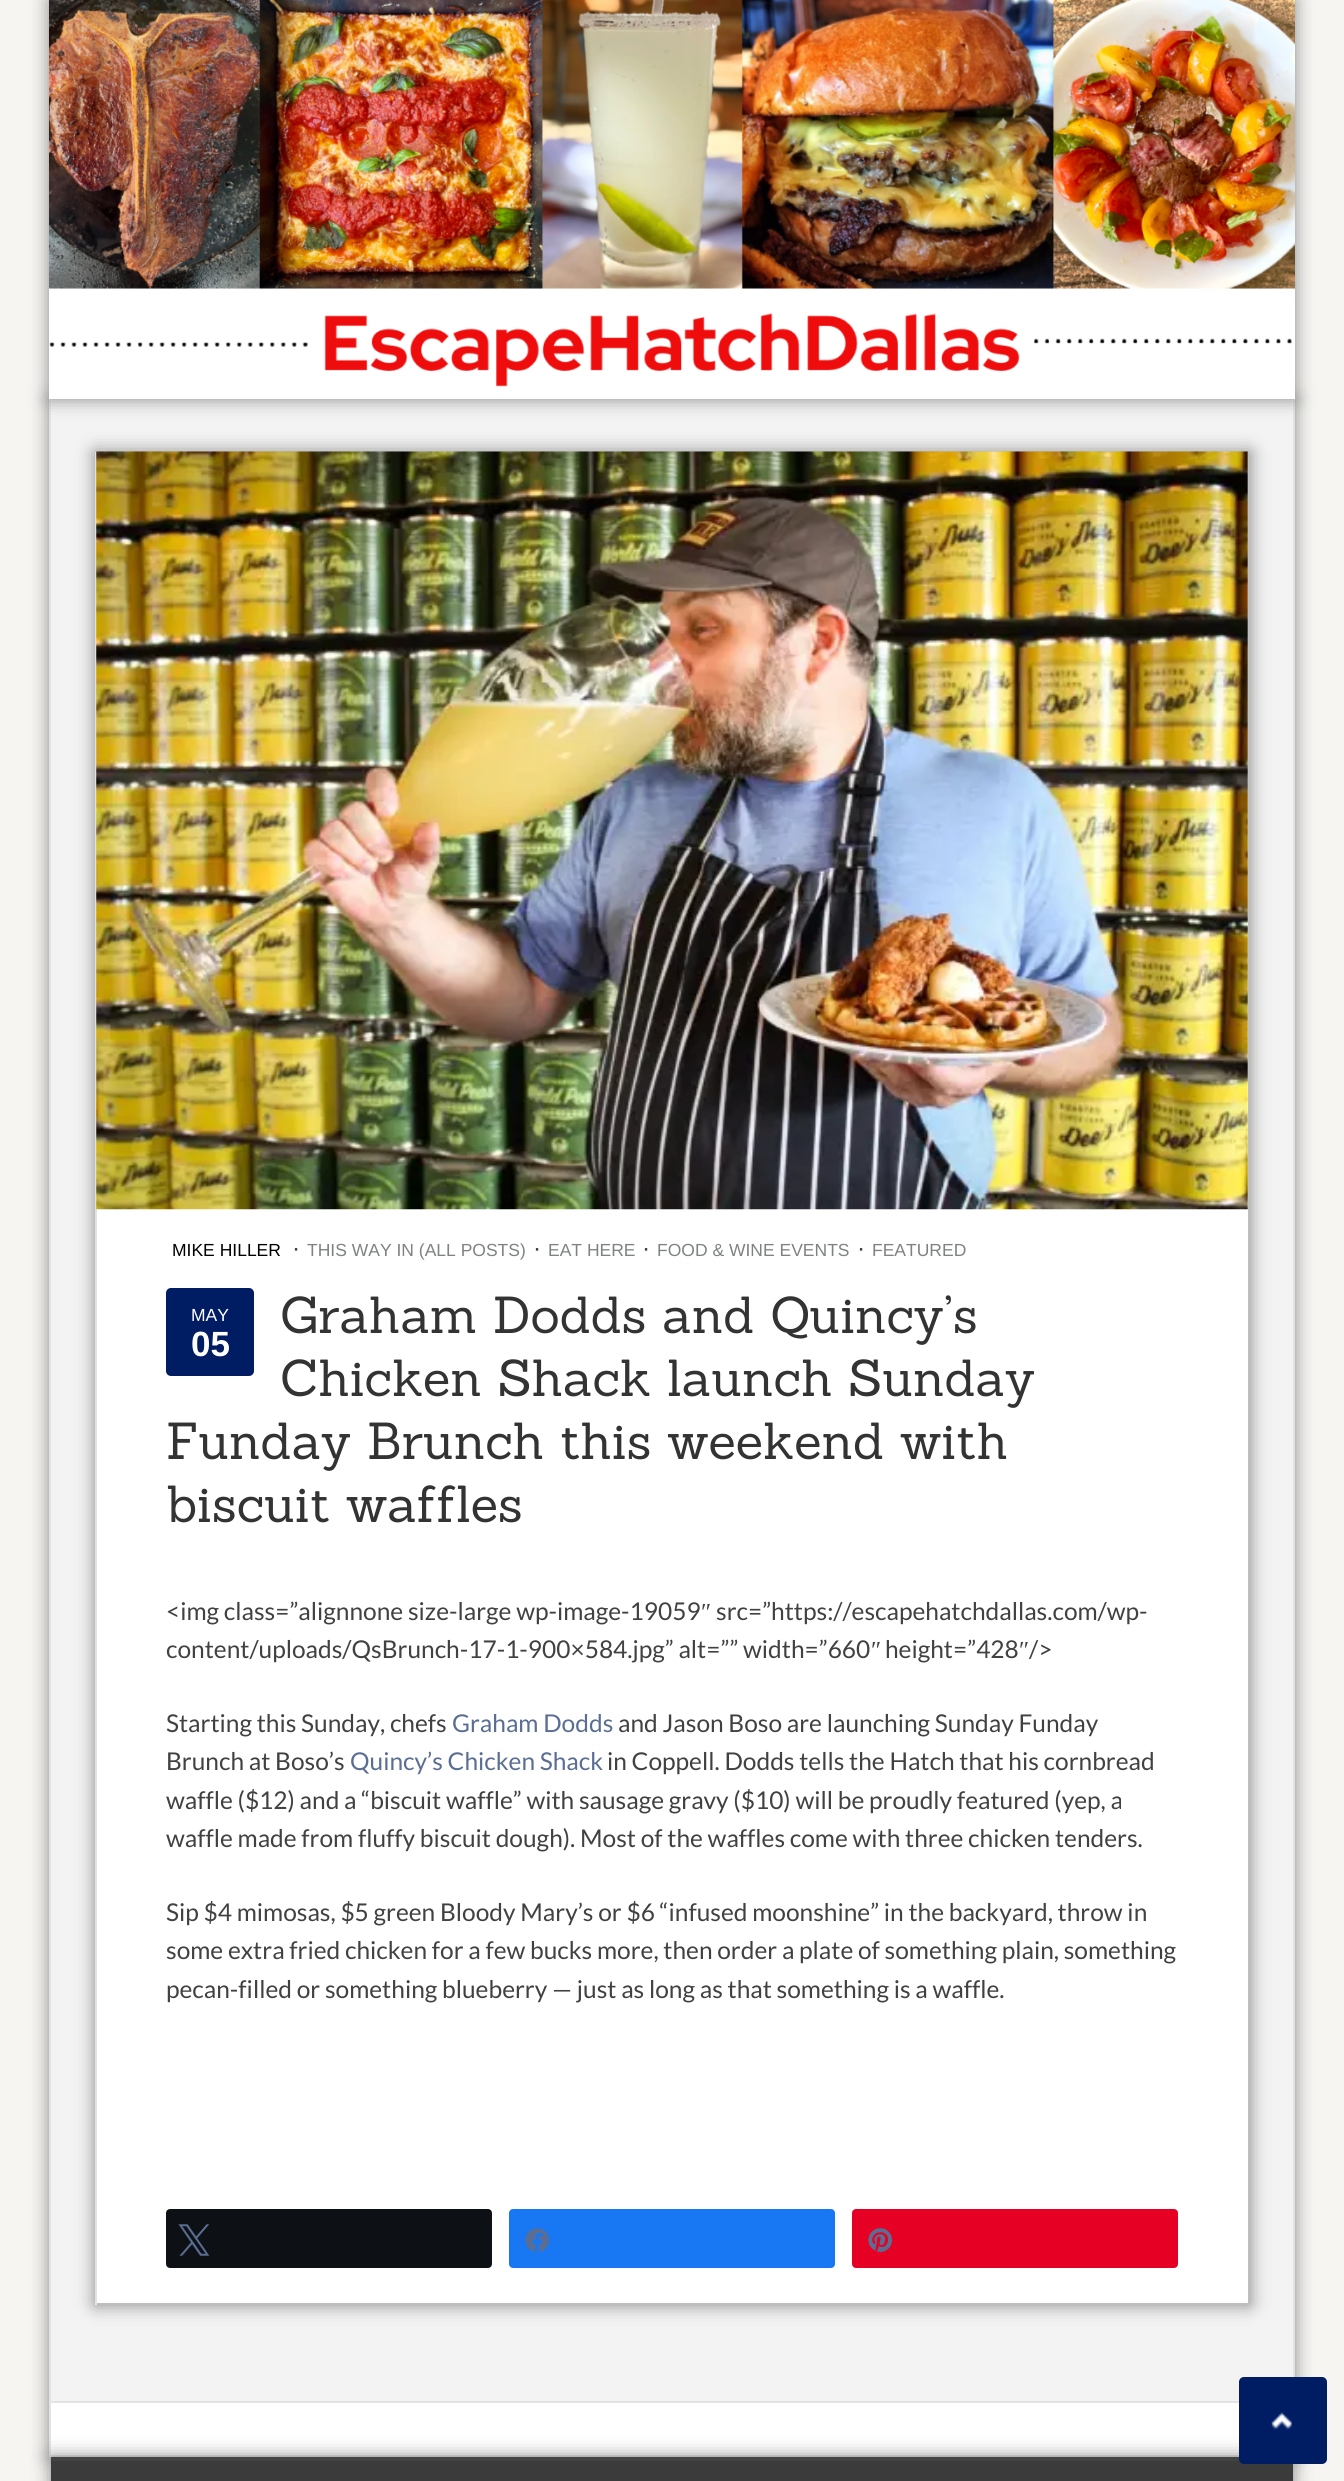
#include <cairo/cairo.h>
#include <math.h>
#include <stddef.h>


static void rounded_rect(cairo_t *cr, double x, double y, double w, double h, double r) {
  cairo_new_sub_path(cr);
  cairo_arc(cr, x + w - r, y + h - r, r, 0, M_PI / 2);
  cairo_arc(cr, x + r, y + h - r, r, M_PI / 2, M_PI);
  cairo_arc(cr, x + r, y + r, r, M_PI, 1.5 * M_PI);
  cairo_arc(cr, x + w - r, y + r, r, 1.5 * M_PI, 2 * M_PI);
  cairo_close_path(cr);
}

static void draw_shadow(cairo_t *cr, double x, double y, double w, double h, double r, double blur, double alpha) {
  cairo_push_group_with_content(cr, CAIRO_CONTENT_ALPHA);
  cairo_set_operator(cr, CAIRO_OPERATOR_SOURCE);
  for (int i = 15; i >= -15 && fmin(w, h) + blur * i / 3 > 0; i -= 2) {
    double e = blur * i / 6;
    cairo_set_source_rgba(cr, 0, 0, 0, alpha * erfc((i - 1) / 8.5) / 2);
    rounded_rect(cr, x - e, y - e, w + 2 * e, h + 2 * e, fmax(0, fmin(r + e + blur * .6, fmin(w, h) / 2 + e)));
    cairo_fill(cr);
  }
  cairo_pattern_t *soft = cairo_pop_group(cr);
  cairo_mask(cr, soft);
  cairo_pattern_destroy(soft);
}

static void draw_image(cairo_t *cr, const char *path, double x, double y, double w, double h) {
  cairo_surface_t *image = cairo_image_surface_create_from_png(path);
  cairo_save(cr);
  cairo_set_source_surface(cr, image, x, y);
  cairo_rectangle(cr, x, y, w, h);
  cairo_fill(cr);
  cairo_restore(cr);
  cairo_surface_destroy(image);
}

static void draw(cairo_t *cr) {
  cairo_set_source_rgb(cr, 246 / 255.0, 245 / 255.0, 242 / 255.0);
  cairo_paint(cr);
  cairo_set_source_rgb(cr, 136 / 255.0, 136 / 255.0, 136 / 255.0);
  draw_shadow(cr, 49, 399, 1246, 2058, 0, 9, 1);
  cairo_set_source_rgb(cr, 227 / 255.0, 227 / 255.0, 227 / 255.0);
  cairo_rectangle(cr, 49, 2455, 1190, 2);
  cairo_fill(cr);
  cairo_rectangle(cr, 49, 399, 2, 2058);
  cairo_fill(cr);
  cairo_set_source_rgb(cr, 243 / 255.0, 243 / 255.0, 243 / 255.0);
  cairo_rectangle(cr, 51, 399, 1242, 2002);
  cairo_fill(cr);
  cairo_set_source_rgb(cr, 227 / 255.0, 227 / 255.0, 227 / 255.0);
  cairo_rectangle(cr, 1293, 399, 2, 1978);
  cairo_fill(cr);
  cairo_set_source_rgb(cr, 136 / 255.0, 136 / 255.0, 136 / 255.0);
  draw_shadow(cr, 49, 0, 1246, 399, 0, 9, 1);
  cairo_set_source_rgb(cr, 1, 1, 1);
  cairo_rectangle(cr, 49, 387, 1246, 12);
  cairo_fill(cr);
  draw_image(cr, "images/1.png", 49, 0, 1246, 387);
  cairo_rectangle(cr, 51, 2403, 1188, 52);
  cairo_fill(cr);
  cairo_set_source_rgb(cr, 227 / 255.0, 227 / 255.0, 227 / 255.0);
  cairo_rectangle(cr, 51, 2401, 1188, 2);
  cairo_fill(cr);
  cairo_set_source_rgb(cr, 136 / 255.0, 136 / 255.0, 136 / 255.0);
  draw_shadow(cr, 95, 452, 1155, 1853, 0, 9, 1);
  cairo_set_source_rgb(cr, 1, 1, 1);
  cairo_rectangle(cr, 97, 452, 1151, 1851);
  cairo_fill(cr);
  cairo_set_source_rgb(cr, 190 / 255.0, 190 / 255.0, 189 / 255.0);
  cairo_rectangle(cr, 1248, 452, 2, 1853);
  cairo_fill(cr);
  cairo_rectangle(cr, 95, 2303, 1155, 2);
  cairo_fill(cr);
  cairo_set_source_rgb(cr, 227 / 255.0, 227 / 255.0, 227 / 255.0);
  cairo_rectangle(cr, 95, 452, 2, 1853);
  cairo_fill(cr);
  draw_image(cr, "images/2.png", 96, 451, 1152, 759);
  cairo_set_source_rgb(cr, 0, 29 / 255.0, 99 / 255.0);
  rounded_rect(cr, 166, 1288, 88, 88, 5);
  cairo_fill(cr);
  cairo_set_source_rgb(cr, 13 / 255.0, 16 / 255.0, 20 / 255.0);
  rounded_rect(cr, 167, 2210, 324, 57, 3);
  cairo_fill_preserve(cr);
  cairo_stroke(cr);
  draw_image(cr, "images/3.png", 178, 2224, 32, 32);
  cairo_set_source_rgb(cr, 24 / 255.0, 119 / 255.0, 242 / 255.0);
  rounded_rect(cr, 510, 2210, 324, 57, 3);
  cairo_fill_preserve(cr);
  cairo_stroke(cr);
  draw_image(cr, "images/4.png", 525, 2228, 24, 24);
  cairo_set_source_rgb(cr, 230 / 255.0, 0, 35 / 255.0);
  rounded_rect(cr, 853, 2210, 324, 57, 3);
  cairo_fill_preserve(cr);
  cairo_stroke(cr);
  draw_image(cr, "images/5.png", 868, 2228, 24, 24);
  cairo_set_source_rgb(cr, 136 / 255.0, 136 / 255.0, 136 / 255.0);
  draw_shadow(cr, 51, 2457, 1242, 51, 0, 9, 1);
  cairo_set_source_rgb(cr, 59 / 255.0, 59 / 255.0, 59 / 255.0);
  cairo_rectangle(cr, 51, 2461, 1242, 20);
  cairo_fill(cr);
  cairo_set_source_rgb(cr, 68 / 255.0, 68 / 255.0, 68 / 255.0);
  cairo_rectangle(cr, 51, 2457, 1189, 4);
  cairo_fill(cr);
  cairo_set_source_rgb(cr, 0, 29 / 255.0, 99 / 255.0);
  rounded_rect(cr, 1239, 2377, 88, 87, 5);
  cairo_fill(cr);
  draw_image(cr, "images/6.png", 1271, 2412, 21, 18);
  cairo_select_font_face(cr, "Liberation Sans", CAIRO_FONT_SLANT_NORMAL, CAIRO_FONT_WEIGHT_NORMAL);
  cairo_set_font_size(cr, 17.5);
  cairo_set_source_rgb(cr, 0, 0, 0);
  cairo_move_to(cr, 172, 1256);
  cairo_show_text(cr, "MIKE HILLER");
  cairo_set_font_size(cr, 24.5);
  cairo_set_source_rgb(cr, 65 / 255.0, 65 / 255.0, 65 / 255.0);
  cairo_move_to(cr, 292, 1256);
  cairo_show_text(cr, "·");
  cairo_set_font_size(cr, 17.5);
  cairo_set_source_rgb(cr, 127 / 255.0, 130 / 255.0, 130 / 255.0);
  cairo_move_to(cr, 307, 1256);
  cairo_show_text(cr, "THIS WAY IN (ALL POSTS)");
  cairo_set_font_size(cr, 24.5);
  cairo_set_source_rgb(cr, 65 / 255.0, 65 / 255.0, 65 / 255.0);
  cairo_move_to(cr, 533, 1256);
  cairo_show_text(cr, "·");
  cairo_set_font_size(cr, 17.5);
  cairo_set_source_rgb(cr, 127 / 255.0, 130 / 255.0, 130 / 255.0);
  cairo_move_to(cr, 548, 1256);
  cairo_show_text(cr, "EAT HERE");
  cairo_set_font_size(cr, 24.5);
  cairo_set_source_rgb(cr, 65 / 255.0, 65 / 255.0, 65 / 255.0);
  cairo_move_to(cr, 642, 1256);
  cairo_show_text(cr, "·");
  cairo_set_font_size(cr, 17.5);
  cairo_set_source_rgb(cr, 127 / 255.0, 130 / 255.0, 130 / 255.0);
  cairo_move_to(cr, 657, 1256);
  cairo_show_text(cr, "FOOD & WINE EVENTS");
  cairo_set_font_size(cr, 24.5);
  cairo_set_source_rgb(cr, 65 / 255.0, 65 / 255.0, 65 / 255.0);
  cairo_move_to(cr, 857, 1256);
  cairo_show_text(cr, "·");
  cairo_set_font_size(cr, 17.5);
  cairo_set_source_rgb(cr, 127 / 255.0, 130 / 255.0, 130 / 255.0);
  cairo_move_to(cr, 872, 1256);
  cairo_show_text(cr, "FEATURED");
  cairo_select_font_face(cr, "Sanchez", CAIRO_FONT_SLANT_NORMAL, CAIRO_FONT_WEIGHT_NORMAL);
  cairo_set_font_size(cr, 50.75);
  cairo_set_source_rgb(cr, 51 / 255.0, 51 / 255.0, 51 / 255.0);
  cairo_move_to(cr, 280, 1333);
  cairo_show_text(cr, "Graham Dodds and Quincy’s");
  cairo_move_to(cr, 280, 1396);
  cairo_show_text(cr, "Chicken Shack launch Sunday");
  cairo_move_to(cr, 166, 1459);
  cairo_show_text(cr, "Funday Brunch this weekend with");
  cairo_move_to(cr, 166, 1522);
  cairo_show_text(cr, "biscuit waffles");
  cairo_select_font_face(cr, "Liberation Sans", CAIRO_FONT_SLANT_NORMAL, CAIRO_FONT_WEIGHT_NORMAL);
  cairo_set_font_size(cr, 17.5);
  cairo_set_source_rgb(cr, 1, 1, 1);
  cairo_move_to(cr, 191, 1321);
  cairo_show_text(cr, "MAY");
  cairo_select_font_face(cr, "Liberation Sans", CAIRO_FONT_SLANT_NORMAL, CAIRO_FONT_WEIGHT_BOLD);
  cairo_set_font_size(cr, 35);
  cairo_move_to(cr, 191, 1356);
  cairo_show_text(cr, "05");
  cairo_select_font_face(cr, "Lato", CAIRO_FONT_SLANT_NORMAL, CAIRO_FONT_WEIGHT_NORMAL);
  cairo_set_font_size(cr, 24.5);
  cairo_set_source_rgb(cr, 65 / 255.0, 65 / 255.0, 65 / 255.0);
  cairo_move_to(cr, 166, 1620);
  cairo_show_text(cr, "<img class=”alignnone size-large wp-image-19059");
  cairo_select_font_face(cr, "Liberation Serif", CAIRO_FONT_SLANT_NORMAL, CAIRO_FONT_WEIGHT_NORMAL);
  cairo_move_to(cr, 701, 1620);
  cairo_show_text(cr, "″");
  cairo_select_font_face(cr, "Lato", CAIRO_FONT_SLANT_NORMAL, CAIRO_FONT_WEIGHT_NORMAL);
  cairo_move_to(cr, 716, 1620);
  cairo_show_text(cr, "src=”https://escapehatchdallas.com/wp-");
  cairo_move_to(cr, 166, 1658);
  cairo_show_text(cr, "content/uploads/QsBrunch-17-1-900×584.jpg” alt=”” width=”660");
  cairo_select_font_face(cr, "Liberation Serif", CAIRO_FONT_SLANT_NORMAL, CAIRO_FONT_WEIGHT_NORMAL);
  cairo_move_to(cr, 871, 1658);
  cairo_show_text(cr, "″");
  cairo_select_font_face(cr, "Lato", CAIRO_FONT_SLANT_NORMAL, CAIRO_FONT_WEIGHT_NORMAL);
  cairo_move_to(cr, 885, 1658);
  cairo_show_text(cr, "height=”428");
  cairo_select_font_face(cr, "Liberation Serif", CAIRO_FONT_SLANT_NORMAL, CAIRO_FONT_WEIGHT_NORMAL);
  cairo_move_to(cr, 1019, 1658);
  cairo_show_text(cr, "″");
  cairo_select_font_face(cr, "Lato", CAIRO_FONT_SLANT_NORMAL, CAIRO_FONT_WEIGHT_NORMAL);
  cairo_move_to(cr, 1029, 1658);
  cairo_show_text(cr, "/>");
  cairo_move_to(cr, 166, 1732);
  cairo_show_text(cr, "Starting this Sunday, chefs");
  cairo_set_source_rgb(cr, 90 / 255.0, 109 / 255.0, 147 / 255.0);
  cairo_move_to(cr, 452, 1732);
  cairo_show_text(cr, "Graham Dodds");
  cairo_set_source_rgb(cr, 65 / 255.0, 65 / 255.0, 65 / 255.0);
  cairo_move_to(cr, 618, 1732);
  cairo_show_text(cr, "and Jason Boso are launching Sunday Funday");
  cairo_move_to(cr, 166, 1770);
  cairo_show_text(cr, "Brunch at Boso’s");
  cairo_set_source_rgb(cr, 90 / 255.0, 109 / 255.0, 147 / 255.0);
  cairo_move_to(cr, 350, 1770);
  cairo_show_text(cr, "Quincy’s Chicken Shack");
  cairo_set_source_rgb(cr, 65 / 255.0, 65 / 255.0, 65 / 255.0);
  cairo_move_to(cr, 607, 1770);
  cairo_show_text(cr, "in Coppell. Dodds tells the Hatch that his cornbread");
  cairo_move_to(cr, 166, 1809);
  cairo_show_text(cr, "waffle ($12) and a “biscuit waffle” with sausage gravy ($10) will be proudly featured (yep, a");
  cairo_move_to(cr, 166, 1847);
  cairo_show_text(cr, "waffle made from fluffy biscuit dough). Most of the waffles come with three chicken tenders.");
  cairo_move_to(cr, 166, 1921);
  cairo_show_text(cr, "Sip $4 mimosas, $5 green Bloody Mary’s or $6 “infused moonshine” in the backyard, throw in");
  cairo_move_to(cr, 166, 1959);
  cairo_show_text(cr, "some extra fried chicken for a few bucks more, then order a plate of something plain, something");
  cairo_move_to(cr, 166, 1998);
  cairo_show_text(cr, "pecan-filled or something blueberry — just as long as that something is a waffle.");
}

int main(void) {
  cairo_surface_t *surface = cairo_image_surface_create(CAIRO_FORMAT_RGB24, 1344, 2481);
  cairo_t *cr = cairo_create(surface);
  cairo_font_options_t *options = cairo_font_options_create();
  cairo_font_options_set_hint_metrics(options, CAIRO_HINT_METRICS_OFF);
  cairo_font_options_set_hint_style(options, CAIRO_HINT_STYLE_NONE);
  cairo_set_font_options(cr, options);
  cairo_set_miter_limit(cr, 4);
  draw(cr);
  cairo_surface_write_to_png(surface, "out.png");
  cairo_font_options_destroy(options);
  cairo_destroy(cr);
  cairo_surface_destroy(surface);
  return 0;
}
